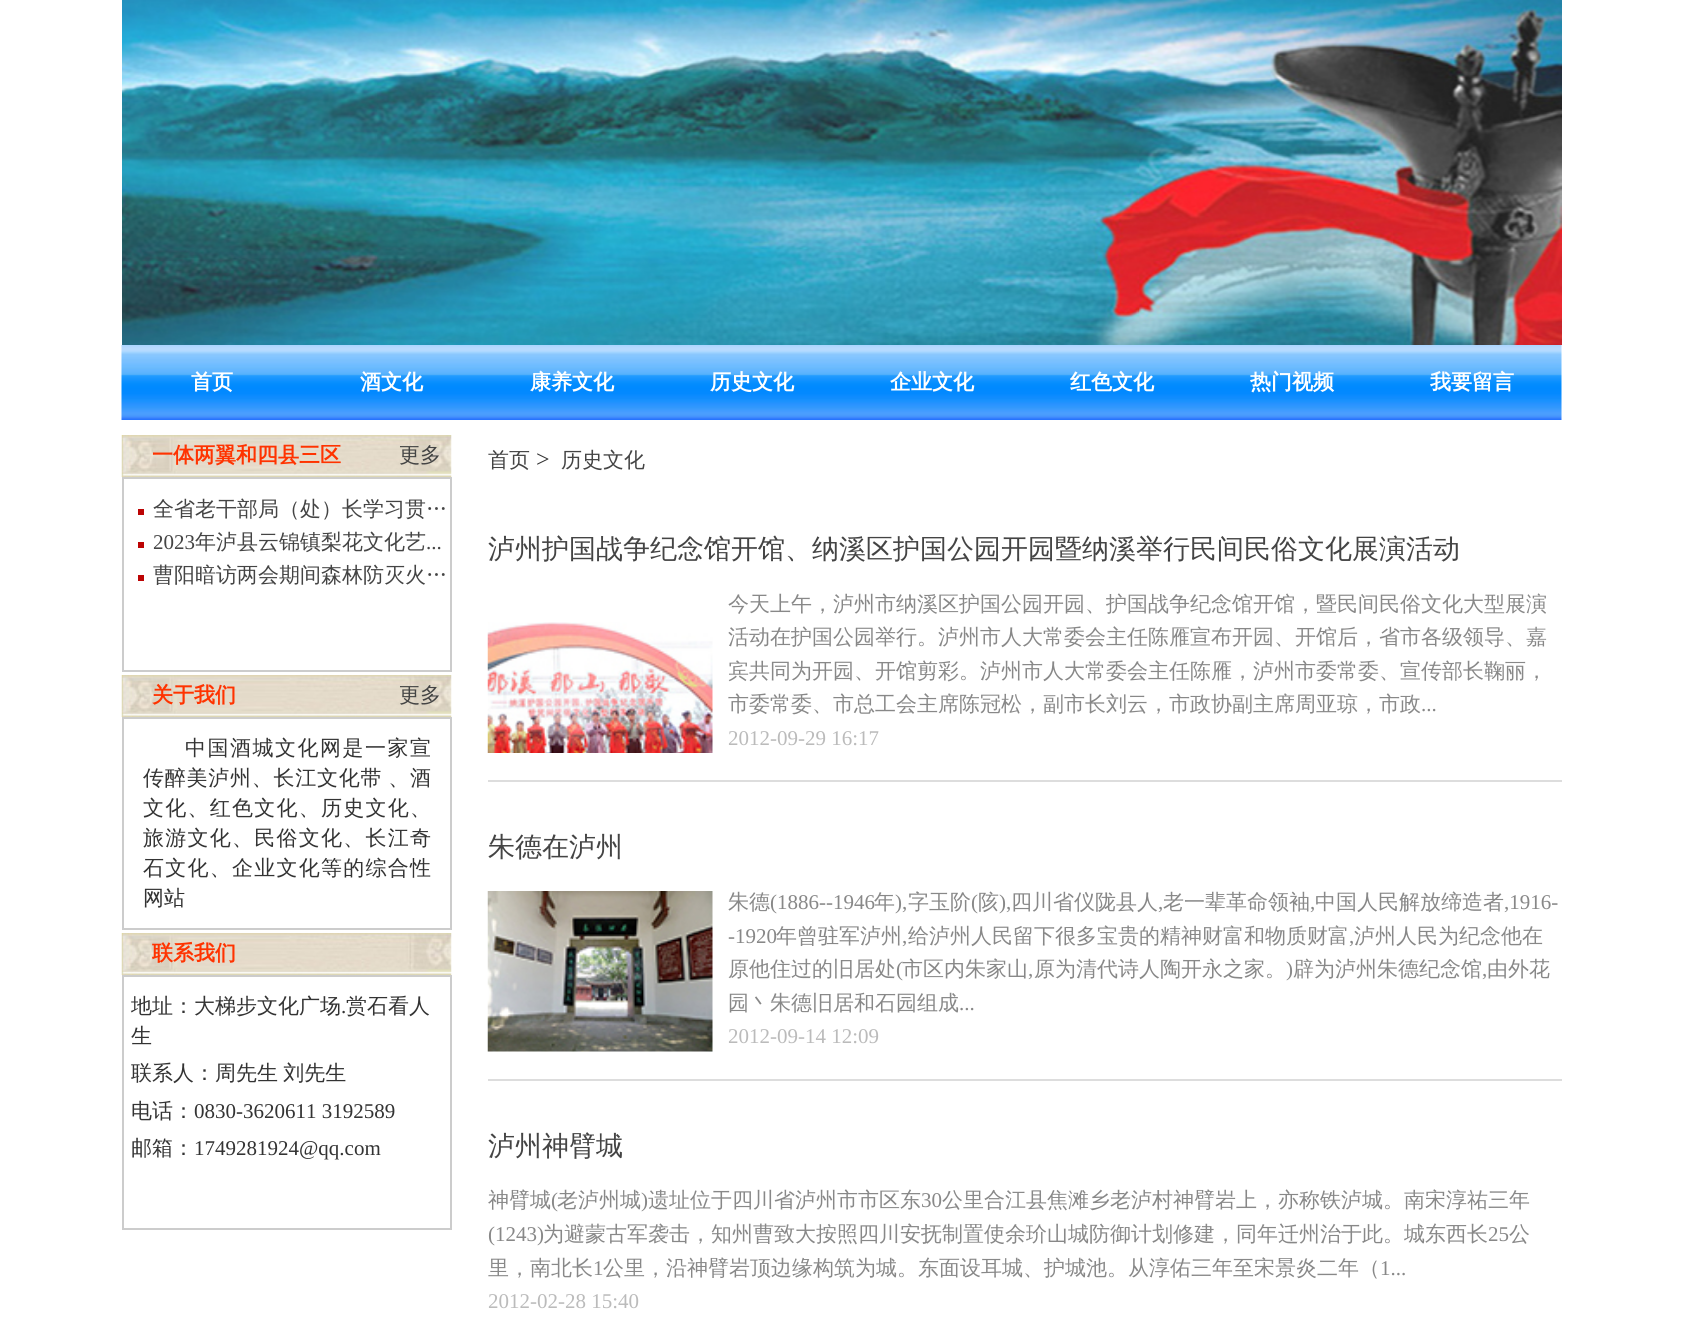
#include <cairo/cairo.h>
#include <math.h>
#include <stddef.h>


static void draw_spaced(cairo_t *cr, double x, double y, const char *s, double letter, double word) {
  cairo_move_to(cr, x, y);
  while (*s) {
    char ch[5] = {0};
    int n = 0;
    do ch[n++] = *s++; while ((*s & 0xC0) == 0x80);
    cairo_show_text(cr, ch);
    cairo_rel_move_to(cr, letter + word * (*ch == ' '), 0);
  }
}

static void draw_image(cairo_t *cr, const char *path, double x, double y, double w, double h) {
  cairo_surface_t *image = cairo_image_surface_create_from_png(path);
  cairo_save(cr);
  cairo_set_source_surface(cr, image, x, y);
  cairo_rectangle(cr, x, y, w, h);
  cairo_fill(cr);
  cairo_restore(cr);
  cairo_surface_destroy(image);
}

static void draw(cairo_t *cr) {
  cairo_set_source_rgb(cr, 1, 1, 1);
  cairo_paint(cr);
  draw_image(cr, "images/1.png", 122, 0, 1440, 345);
  draw_image(cr, "images/2.png", 121, 345, 1441, 75);
  draw_image(cr, "images/3.png", 121, 435, 331, 42);
  cairo_rectangle(cr, 123, 478, 328, 193);
  cairo_set_source_rgb(cr, 204 / 255.0, 204 / 255.0, 204 / 255.0);
  cairo_stroke(cr);
  cairo_set_source_rgb(cr, 188 / 255.0, 4 / 255.0, 4 / 255.0);
  cairo_rectangle(cr, 138, 509, 6, 6);
  cairo_fill(cr);
  cairo_rectangle(cr, 138, 542, 6, 6);
  cairo_fill(cr);
  cairo_rectangle(cr, 138, 575, 6, 6);
  cairo_fill(cr);
  draw_image(cr, "images/3.png", 121, 675, 331, 42);
  cairo_rectangle(cr, 123, 718, 328, 211);
  cairo_set_source_rgb(cr, 204 / 255.0, 204 / 255.0, 204 / 255.0);
  cairo_stroke(cr);
  draw_image(cr, "images/3.png", 121, 933, 331, 42);
  cairo_rectangle(cr, 123, 976, 328, 253);
  cairo_stroke(cr);
  cairo_set_source_rgb(cr, 221 / 255.0, 221 / 255.0, 221 / 255.0);
  cairo_rectangle(cr, 488, 780, 1074, 2);
  cairo_fill(cr);
  draw_image(cr, "images/4.png", 487, 622, 226, 131);
  cairo_rectangle(cr, 488, 1079, 1074, 2);
  cairo_fill(cr);
  draw_image(cr, "images/5.png", 487, 891, 226, 161);
  cairo_select_font_face(cr, "WenQuanYi Zen Hei", CAIRO_FONT_SLANT_NORMAL, CAIRO_FONT_WEIGHT_BOLD);
  cairo_set_font_size(cr, 21);
  cairo_set_source_rgb(cr, 1, 1, 1);
  cairo_move_to(cr, 191, 389);
  cairo_show_text(cr, "首页");
  cairo_move_to(cr, 360, 389);
  cairo_show_text(cr, "酒文化");
  cairo_move_to(cr, 530, 389);
  cairo_show_text(cr, "康养文化");
  cairo_move_to(cr, 710, 389);
  cairo_show_text(cr, "历史文化");
  cairo_move_to(cr, 890, 389);
  cairo_show_text(cr, "企业文化");
  cairo_move_to(cr, 1070, 389);
  cairo_show_text(cr, "红色文化");
  cairo_move_to(cr, 1250, 389);
  cairo_show_text(cr, "热门视频");
  cairo_move_to(cr, 1430, 389);
  cairo_show_text(cr, "我要留言");
  cairo_set_source_rgb(cr, 1, 51 / 255.0, 0);
  cairo_move_to(cr, 152, 462);
  cairo_show_text(cr, "一体两翼和四县三区");
  cairo_select_font_face(cr, "WenQuanYi Zen Hei Medium", CAIRO_FONT_SLANT_NORMAL, CAIRO_FONT_WEIGHT_NORMAL);
  cairo_set_source_rgb(cr, 68 / 255.0, 68 / 255.0, 68 / 255.0);
  cairo_move_to(cr, 399, 462);
  cairo_show_text(cr, "更多");
  cairo_move_to(cr, 153, 516);
  cairo_show_text(cr, "全省老干部局（处）长学习贯…");
  cairo_select_font_face(cr, "Liberation Serif", CAIRO_FONT_SLANT_NORMAL, CAIRO_FONT_WEIGHT_NORMAL);
  cairo_move_to(cr, 153, 549);
  cairo_show_text(cr, "2023");
  cairo_select_font_face(cr, "WenQuanYi Zen Hei Medium", CAIRO_FONT_SLANT_NORMAL, CAIRO_FONT_WEIGHT_NORMAL);
  cairo_move_to(cr, 195, 549);
  cairo_show_text(cr, "年泸县云锦镇梨花文化艺");
  cairo_select_font_face(cr, "Liberation Serif", CAIRO_FONT_SLANT_NORMAL, CAIRO_FONT_WEIGHT_NORMAL);
  cairo_move_to(cr, 426, 549);
  cairo_show_text(cr, "...");
  cairo_select_font_face(cr, "WenQuanYi Zen Hei Medium", CAIRO_FONT_SLANT_NORMAL, CAIRO_FONT_WEIGHT_NORMAL);
  cairo_move_to(cr, 153, 582);
  cairo_show_text(cr, "曹阳暗访两会期间森林防灭火…");
  cairo_select_font_face(cr, "WenQuanYi Zen Hei", CAIRO_FONT_SLANT_NORMAL, CAIRO_FONT_WEIGHT_BOLD);
  cairo_set_source_rgb(cr, 1, 51 / 255.0, 0);
  cairo_move_to(cr, 152, 702);
  cairo_show_text(cr, "关于我们");
  cairo_select_font_face(cr, "WenQuanYi Zen Hei Medium", CAIRO_FONT_SLANT_NORMAL, CAIRO_FONT_WEIGHT_NORMAL);
  cairo_set_source_rgb(cr, 68 / 255.0, 68 / 255.0, 68 / 255.0);
  cairo_move_to(cr, 399, 702);
  cairo_show_text(cr, "更多");
  cairo_set_source_rgb(cr, 51 / 255.0, 51 / 255.0, 51 / 255.0);
  draw_spaced(cr, 185, 755, "中国酒城文化网是一家宣", 1.5, 0);
  draw_spaced(cr, 143, 785, "传醉美泸州、长江文化带 、酒", 0.75, -1);
  draw_spaced(cr, 143, 815, "文化、红色文化、历史文化、", 1.25, 0);
  draw_spaced(cr, 143, 845, "旅游文化、民俗文化、长江奇", 1.25, 0);
  draw_spaced(cr, 143, 875, "石文化、企业文化等的综合性", 1.25, 0);
  cairo_move_to(cr, 143, 905);
  cairo_show_text(cr, "网站");
  cairo_select_font_face(cr, "WenQuanYi Zen Hei", CAIRO_FONT_SLANT_NORMAL, CAIRO_FONT_WEIGHT_BOLD);
  cairo_set_source_rgb(cr, 1, 51 / 255.0, 0);
  cairo_move_to(cr, 152, 960);
  cairo_show_text(cr, "联系我们");
  cairo_select_font_face(cr, "WenQuanYi Zen Hei Medium", CAIRO_FONT_SLANT_NORMAL, CAIRO_FONT_WEIGHT_NORMAL);
  cairo_set_source_rgb(cr, 51 / 255.0, 51 / 255.0, 51 / 255.0);
  cairo_move_to(cr, 131, 1013);
  cairo_show_text(cr, "地址：大梯步文化广场");
  cairo_select_font_face(cr, "Liberation Serif", CAIRO_FONT_SLANT_NORMAL, CAIRO_FONT_WEIGHT_NORMAL);
  cairo_move_to(cr, 341, 1013);
  cairo_show_text(cr, ".");
  cairo_select_font_face(cr, "WenQuanYi Zen Hei Medium", CAIRO_FONT_SLANT_NORMAL, CAIRO_FONT_WEIGHT_NORMAL);
  cairo_move_to(cr, 346, 1013);
  cairo_show_text(cr, "赏石看人");
  cairo_move_to(cr, 131, 1043);
  cairo_show_text(cr, "生");
  draw_spaced(cr, 131, 1080, "联系人：周先生 刘先生", 0, -1);
  cairo_move_to(cr, 131, 1118);
  cairo_show_text(cr, "电话：");
  cairo_select_font_face(cr, "Liberation Serif", CAIRO_FONT_SLANT_NORMAL, CAIRO_FONT_WEIGHT_NORMAL);
  cairo_move_to(cr, 194, 1118);
  cairo_show_text(cr, "0830-3620611 3192589");
  cairo_select_font_face(cr, "WenQuanYi Zen Hei Medium", CAIRO_FONT_SLANT_NORMAL, CAIRO_FONT_WEIGHT_NORMAL);
  cairo_move_to(cr, 131, 1155);
  cairo_show_text(cr, "邮箱：");
  cairo_select_font_face(cr, "Liberation Serif", CAIRO_FONT_SLANT_NORMAL, CAIRO_FONT_WEIGHT_NORMAL);
  cairo_move_to(cr, 194, 1155);
  cairo_show_text(cr, "1749281924@qq.com");
  cairo_select_font_face(cr, "WenQuanYi Zen Hei Medium", CAIRO_FONT_SLANT_NORMAL, CAIRO_FONT_WEIGHT_NORMAL);
  cairo_set_source_rgb(cr, 68 / 255.0, 68 / 255.0, 68 / 255.0);
  cairo_move_to(cr, 488, 467);
  cairo_show_text(cr, "首页");
  cairo_select_font_face(cr, "Liberation Serif", CAIRO_FONT_SLANT_NORMAL, CAIRO_FONT_WEIGHT_NORMAL);
  cairo_set_font_size(cr, 24);
  cairo_set_source_rgb(cr, 51 / 255.0, 51 / 255.0, 51 / 255.0);
  cairo_move_to(cr, 536, 467);
  cairo_show_text(cr, ">");
  cairo_select_font_face(cr, "WenQuanYi Zen Hei Medium", CAIRO_FONT_SLANT_NORMAL, CAIRO_FONT_WEIGHT_NORMAL);
  cairo_set_font_size(cr, 21);
  cairo_set_source_rgb(cr, 68 / 255.0, 68 / 255.0, 68 / 255.0);
  cairo_move_to(cr, 561, 467);
  cairo_show_text(cr, "历史文化");
  cairo_set_font_size(cr, 27);
  cairo_move_to(cr, 488, 558);
  cairo_show_text(cr, "泸州护国战争纪念馆开馆、纳溪区护国公园开园暨纳溪举行民间民俗文化展演活动");
  cairo_set_font_size(cr, 21);
  cairo_set_source_rgb(cr, 136 / 255.0, 136 / 255.0, 136 / 255.0);
  cairo_move_to(cr, 728, 611);
  cairo_show_text(cr, "今天上午，泸州市纳溪区护国公园开园、护国战争纪念馆开馆，暨民间民俗文化大型展演");
  cairo_move_to(cr, 728, 644);
  cairo_show_text(cr, "活动在护国公园举行。泸州市人大常委会主任陈雁宣布开园、开馆后，省市各级领导、嘉");
  cairo_move_to(cr, 728, 678);
  cairo_show_text(cr, "宾共同为开园、开馆剪彩。泸州市人大常委会主任陈雁，泸州市委常委、宣传部长鞠丽，");
  cairo_move_to(cr, 728, 711);
  cairo_show_text(cr, "市委常委、市总工会主席陈冠松，副市长刘云，市政协副主席周亚琼，市政");
  cairo_select_font_face(cr, "Liberation Serif", CAIRO_FONT_SLANT_NORMAL, CAIRO_FONT_WEIGHT_NORMAL);
  cairo_move_to(cr, 1421, 711);
  cairo_show_text(cr, "...");
  cairo_set_source_rgb(cr, 187 / 255.0, 187 / 255.0, 187 / 255.0);
  cairo_move_to(cr, 728, 745);
  cairo_show_text(cr, "2012-09-29 16:17");
  cairo_select_font_face(cr, "WenQuanYi Zen Hei Medium", CAIRO_FONT_SLANT_NORMAL, CAIRO_FONT_WEIGHT_NORMAL);
  cairo_set_font_size(cr, 27);
  cairo_set_source_rgb(cr, 68 / 255.0, 68 / 255.0, 68 / 255.0);
  cairo_move_to(cr, 488, 856);
  cairo_show_text(cr, "朱德在泸州");
  cairo_set_font_size(cr, 21);
  cairo_set_source_rgb(cr, 136 / 255.0, 136 / 255.0, 136 / 255.0);
  cairo_move_to(cr, 728, 909);
  cairo_show_text(cr, "朱德");
  cairo_select_font_face(cr, "Liberation Serif", CAIRO_FONT_SLANT_NORMAL, CAIRO_FONT_WEIGHT_NORMAL);
  cairo_move_to(cr, 770, 909);
  cairo_show_text(cr, "(1886--1946");
  cairo_select_font_face(cr, "WenQuanYi Zen Hei Medium", CAIRO_FONT_SLANT_NORMAL, CAIRO_FONT_WEIGHT_NORMAL);
  cairo_move_to(cr, 874, 909);
  cairo_show_text(cr, "年");
  cairo_select_font_face(cr, "Liberation Serif", CAIRO_FONT_SLANT_NORMAL, CAIRO_FONT_WEIGHT_NORMAL);
  cairo_move_to(cr, 895, 909);
  cairo_show_text(cr, "),");
  cairo_select_font_face(cr, "WenQuanYi Zen Hei Medium", CAIRO_FONT_SLANT_NORMAL, CAIRO_FONT_WEIGHT_NORMAL);
  cairo_move_to(cr, 908, 909);
  cairo_show_text(cr, "字玉阶");
  cairo_select_font_face(cr, "Liberation Serif", CAIRO_FONT_SLANT_NORMAL, CAIRO_FONT_WEIGHT_NORMAL);
  cairo_move_to(cr, 971, 909);
  cairo_show_text(cr, "(");
  cairo_select_font_face(cr, "WenQuanYi Zen Hei Medium", CAIRO_FONT_SLANT_NORMAL, CAIRO_FONT_WEIGHT_NORMAL);
  cairo_move_to(cr, 978, 909);
  cairo_show_text(cr, "陔");
  cairo_select_font_face(cr, "Liberation Serif", CAIRO_FONT_SLANT_NORMAL, CAIRO_FONT_WEIGHT_NORMAL);
  cairo_move_to(cr, 999, 909);
  cairo_show_text(cr, "),");
  cairo_select_font_face(cr, "WenQuanYi Zen Hei Medium", CAIRO_FONT_SLANT_NORMAL, CAIRO_FONT_WEIGHT_NORMAL);
  cairo_move_to(cr, 1011, 909);
  cairo_show_text(cr, "四川省仪陇县人");
  cairo_select_font_face(cr, "Liberation Serif", CAIRO_FONT_SLANT_NORMAL, CAIRO_FONT_WEIGHT_NORMAL);
  cairo_move_to(cr, 1158, 909);
  cairo_show_text(cr, ",");
  cairo_select_font_face(cr, "WenQuanYi Zen Hei Medium", CAIRO_FONT_SLANT_NORMAL, CAIRO_FONT_WEIGHT_NORMAL);
  cairo_move_to(cr, 1163, 909);
  cairo_show_text(cr, "老一辈革命领袖");
  cairo_select_font_face(cr, "Liberation Serif", CAIRO_FONT_SLANT_NORMAL, CAIRO_FONT_WEIGHT_NORMAL);
  cairo_move_to(cr, 1310, 909);
  cairo_show_text(cr, ",");
  cairo_select_font_face(cr, "WenQuanYi Zen Hei Medium", CAIRO_FONT_SLANT_NORMAL, CAIRO_FONT_WEIGHT_NORMAL);
  cairo_move_to(cr, 1315, 909);
  cairo_show_text(cr, "中国人民解放缔造者");
  cairo_select_font_face(cr, "Liberation Serif", CAIRO_FONT_SLANT_NORMAL, CAIRO_FONT_WEIGHT_NORMAL);
  cairo_move_to(cr, 1504, 909);
  cairo_show_text(cr, ",1916-");
  cairo_move_to(cr, 728, 943);
  cairo_show_text(cr, "-1920");
  cairo_select_font_face(cr, "WenQuanYi Zen Hei Medium", CAIRO_FONT_SLANT_NORMAL, CAIRO_FONT_WEIGHT_NORMAL);
  cairo_move_to(cr, 776, 943);
  cairo_show_text(cr, "年曾驻军泸州");
  cairo_select_font_face(cr, "Liberation Serif", CAIRO_FONT_SLANT_NORMAL, CAIRO_FONT_WEIGHT_NORMAL);
  cairo_move_to(cr, 902, 943);
  cairo_show_text(cr, ",");
  cairo_select_font_face(cr, "WenQuanYi Zen Hei Medium", CAIRO_FONT_SLANT_NORMAL, CAIRO_FONT_WEIGHT_NORMAL);
  cairo_move_to(cr, 908, 943);
  cairo_show_text(cr, "给泸州人民留下很多宝贵的精神财富和物质财富");
  cairo_select_font_face(cr, "Liberation Serif", CAIRO_FONT_SLANT_NORMAL, CAIRO_FONT_WEIGHT_NORMAL);
  cairo_move_to(cr, 1349, 943);
  cairo_show_text(cr, ",");
  cairo_select_font_face(cr, "WenQuanYi Zen Hei Medium", CAIRO_FONT_SLANT_NORMAL, CAIRO_FONT_WEIGHT_NORMAL);
  cairo_move_to(cr, 1354, 943);
  cairo_show_text(cr, "泸州人民为纪念他在");
  cairo_move_to(cr, 728, 976);
  cairo_show_text(cr, "原他住过的旧居处");
  cairo_select_font_face(cr, "Liberation Serif", CAIRO_FONT_SLANT_NORMAL, CAIRO_FONT_WEIGHT_NORMAL);
  cairo_move_to(cr, 896, 976);
  cairo_show_text(cr, "(");
  cairo_select_font_face(cr, "WenQuanYi Zen Hei Medium", CAIRO_FONT_SLANT_NORMAL, CAIRO_FONT_WEIGHT_NORMAL);
  cairo_move_to(cr, 902, 976);
  cairo_show_text(cr, "市区内朱家山");
  cairo_select_font_face(cr, "Liberation Serif", CAIRO_FONT_SLANT_NORMAL, CAIRO_FONT_WEIGHT_NORMAL);
  cairo_move_to(cr, 1028, 976);
  cairo_show_text(cr, ",");
  cairo_select_font_face(cr, "WenQuanYi Zen Hei Medium", CAIRO_FONT_SLANT_NORMAL, CAIRO_FONT_WEIGHT_NORMAL);
  cairo_move_to(cr, 1034, 976);
  cairo_show_text(cr, "原为清代诗人陶开永之家。");
  cairo_select_font_face(cr, "Liberation Serif", CAIRO_FONT_SLANT_NORMAL, CAIRO_FONT_WEIGHT_NORMAL);
  cairo_move_to(cr, 1286, 976);
  cairo_show_text(cr, ")");
  cairo_select_font_face(cr, "WenQuanYi Zen Hei Medium", CAIRO_FONT_SLANT_NORMAL, CAIRO_FONT_WEIGHT_NORMAL);
  cairo_move_to(cr, 1293, 976);
  cairo_show_text(cr, "辟为泸州朱德纪念馆");
  cairo_select_font_face(cr, "Liberation Serif", CAIRO_FONT_SLANT_NORMAL, CAIRO_FONT_WEIGHT_NORMAL);
  cairo_move_to(cr, 1482, 976);
  cairo_show_text(cr, ",");
  cairo_select_font_face(cr, "WenQuanYi Zen Hei Medium", CAIRO_FONT_SLANT_NORMAL, CAIRO_FONT_WEIGHT_NORMAL);
  cairo_move_to(cr, 1487, 976);
  cairo_show_text(cr, "由外花");
  cairo_move_to(cr, 728, 1010);
  cairo_show_text(cr, "园丶朱德旧居和石园组成");
  cairo_select_font_face(cr, "Liberation Serif", CAIRO_FONT_SLANT_NORMAL, CAIRO_FONT_WEIGHT_NORMAL);
  cairo_move_to(cr, 959, 1010);
  cairo_show_text(cr, "...");
  cairo_set_source_rgb(cr, 187 / 255.0, 187 / 255.0, 187 / 255.0);
  cairo_move_to(cr, 728, 1043);
  cairo_show_text(cr, "2012-09-14 12:09");
  cairo_select_font_face(cr, "WenQuanYi Zen Hei Medium", CAIRO_FONT_SLANT_NORMAL, CAIRO_FONT_WEIGHT_NORMAL);
  cairo_set_font_size(cr, 27);
  cairo_set_source_rgb(cr, 68 / 255.0, 68 / 255.0, 68 / 255.0);
  cairo_move_to(cr, 488, 1155);
  cairo_show_text(cr, "泸州神臂城");
  cairo_set_font_size(cr, 21);
  cairo_set_source_rgb(cr, 136 / 255.0, 136 / 255.0, 136 / 255.0);
  cairo_move_to(cr, 488, 1207);
  cairo_show_text(cr, "神臂城");
  cairo_select_font_face(cr, "Liberation Serif", CAIRO_FONT_SLANT_NORMAL, CAIRO_FONT_WEIGHT_NORMAL);
  cairo_move_to(cr, 551, 1207);
  cairo_show_text(cr, "(");
  cairo_select_font_face(cr, "WenQuanYi Zen Hei Medium", CAIRO_FONT_SLANT_NORMAL, CAIRO_FONT_WEIGHT_NORMAL);
  cairo_move_to(cr, 557, 1207);
  cairo_show_text(cr, "老泸州城");
  cairo_select_font_face(cr, "Liberation Serif", CAIRO_FONT_SLANT_NORMAL, CAIRO_FONT_WEIGHT_NORMAL);
  cairo_move_to(cr, 641, 1207);
  cairo_show_text(cr, ")");
  cairo_select_font_face(cr, "WenQuanYi Zen Hei Medium", CAIRO_FONT_SLANT_NORMAL, CAIRO_FONT_WEIGHT_NORMAL);
  cairo_move_to(cr, 648, 1207);
  cairo_show_text(cr, "遗址位于四川省泸州市市区东");
  cairo_select_font_face(cr, "Liberation Serif", CAIRO_FONT_SLANT_NORMAL, CAIRO_FONT_WEIGHT_NORMAL);
  cairo_move_to(cr, 921, 1207);
  cairo_show_text(cr, "30");
  cairo_select_font_face(cr, "WenQuanYi Zen Hei Medium", CAIRO_FONT_SLANT_NORMAL, CAIRO_FONT_WEIGHT_NORMAL);
  cairo_move_to(cr, 942, 1207);
  cairo_show_text(cr, "公里合江县焦滩乡老泸村神臂岩上，亦称铁泸城。南宋淳祐三年");
  cairo_select_font_face(cr, "Liberation Serif", CAIRO_FONT_SLANT_NORMAL, CAIRO_FONT_WEIGHT_NORMAL);
  cairo_move_to(cr, 488, 1241);
  cairo_show_text(cr, "(1243)");
  cairo_select_font_face(cr, "WenQuanYi Zen Hei Medium", CAIRO_FONT_SLANT_NORMAL, CAIRO_FONT_WEIGHT_NORMAL);
  cairo_move_to(cr, 543, 1241);
  cairo_show_text(cr, "为避蒙古军袭击，知州曹致大按照四川安抚制置使余玠山城防御计划修建，同年迁州治于此。城东西长");
  cairo_select_font_face(cr, "Liberation Serif", CAIRO_FONT_SLANT_NORMAL, CAIRO_FONT_WEIGHT_NORMAL);
  cairo_move_to(cr, 1488, 1241);
  cairo_show_text(cr, "25");
  cairo_select_font_face(cr, "WenQuanYi Zen Hei Medium", CAIRO_FONT_SLANT_NORMAL, CAIRO_FONT_WEIGHT_NORMAL);
  cairo_move_to(cr, 1509, 1241);
  cairo_show_text(cr, "公");
  cairo_move_to(cr, 488, 1275);
  cairo_show_text(cr, "里，南北长");
  cairo_select_font_face(cr, "Liberation Serif", CAIRO_FONT_SLANT_NORMAL, CAIRO_FONT_WEIGHT_NORMAL);
  cairo_move_to(cr, 593, 1275);
  cairo_show_text(cr, "1");
  cairo_select_font_face(cr, "WenQuanYi Zen Hei Medium", CAIRO_FONT_SLANT_NORMAL, CAIRO_FONT_WEIGHT_NORMAL);
  cairo_move_to(cr, 603, 1275);
  cairo_show_text(cr, "公里，沿神臂岩顶边缘构筑为城。东面设耳城、护城池。从淳佑三年至宋景炎二年（");
  cairo_select_font_face(cr, "Liberation Serif", CAIRO_FONT_SLANT_NORMAL, CAIRO_FONT_WEIGHT_NORMAL);
  cairo_move_to(cr, 1380, 1275);
  cairo_show_text(cr, "1...");
  cairo_set_source_rgb(cr, 187 / 255.0, 187 / 255.0, 187 / 255.0);
  cairo_move_to(cr, 488, 1308);
  cairo_show_text(cr, "2012-02-28 15:40");
}

int main(void) {
  cairo_surface_t *surface = cairo_image_surface_create(CAIRO_FORMAT_RGB24, 1682, 1320);
  cairo_t *cr = cairo_create(surface);
  cairo_font_options_t *options = cairo_font_options_create();
  cairo_font_options_set_hint_metrics(options, CAIRO_HINT_METRICS_OFF);
  cairo_font_options_set_hint_style(options, CAIRO_HINT_STYLE_NONE);
  cairo_set_font_options(cr, options);
  cairo_set_miter_limit(cr, 4);
  draw(cr);
  cairo_surface_write_to_png(surface, "out.png");
  cairo_font_options_destroy(options);
  cairo_destroy(cr);
  cairo_surface_destroy(surface);
  return 0;
}
